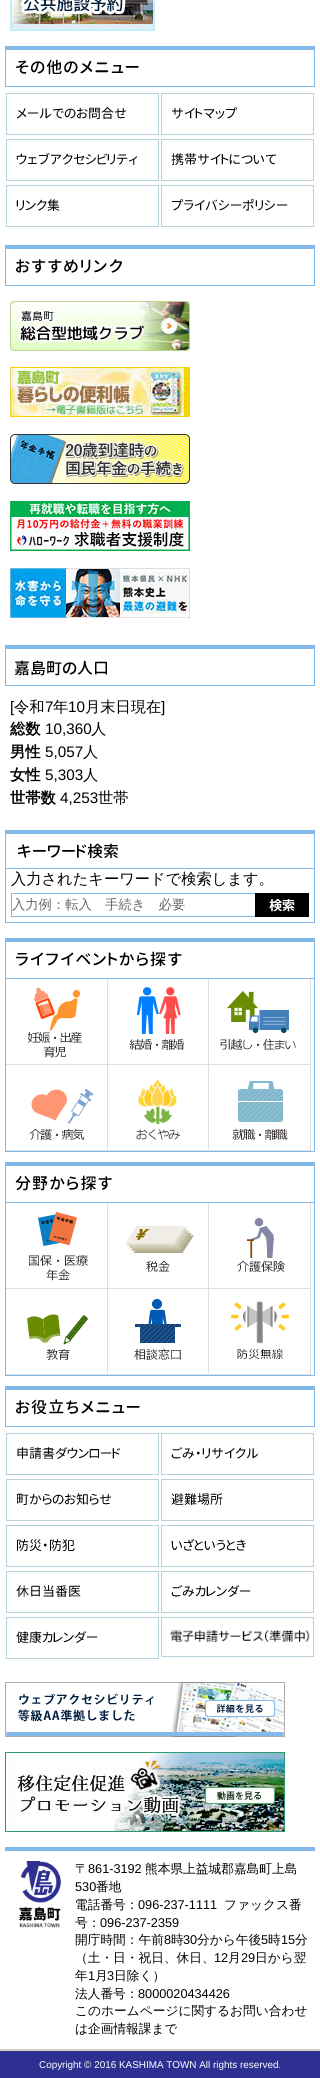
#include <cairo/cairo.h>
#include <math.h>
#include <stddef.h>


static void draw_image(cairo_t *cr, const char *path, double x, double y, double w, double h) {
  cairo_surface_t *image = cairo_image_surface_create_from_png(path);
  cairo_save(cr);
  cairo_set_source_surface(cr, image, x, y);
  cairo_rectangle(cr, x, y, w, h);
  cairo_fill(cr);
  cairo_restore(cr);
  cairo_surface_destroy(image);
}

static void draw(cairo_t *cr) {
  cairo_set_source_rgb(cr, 1, 1, 1);
  cairo_paint(cr);
  draw_image(cr, "images/1.png", 12, 0, 141, 29);
  cairo_rectangle(cr, 11, -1, 143, 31);
  cairo_set_source_rgb(cr, 191 / 255.0, 239 / 255.0, 1);
  cairo_stroke(cr);
  draw_image(cr, "images/2.png", 21, 0, 105, 15);
  cairo_set_source_rgb(cr, 128 / 255.0, 184 / 255.0, 234 / 255.0);
  cairo_rectangle(cr, 5, 46, 310, 4);
  cairo_fill(cr);
  cairo_rectangle(cr, 314, 46, 1, 41);
  cairo_fill(cr);
  cairo_rectangle(cr, 5, 86, 310, 1);
  cairo_fill(cr);
  cairo_rectangle(cr, 5, 46, 1, 41);
  cairo_fill(cr);
  draw_image(cr, "images/3.png", 16, 59, 123, 16);
  cairo_rectangle(cr, 6.5, 93.5, 152, 41);
  cairo_set_source_rgb(cr, 183 / 255.0, 208 / 255.0, 219 / 255.0);
  cairo_set_line_width(cr, 1);
  cairo_stroke(cr);
  draw_image(cr, "images/4.png", 16, 107, 110, 12);
  cairo_rectangle(cr, 161.5, 93.5, 152, 41);
  cairo_stroke(cr);
  draw_image(cr, "images/5.png", 171, 107, 66, 12);
  cairo_rectangle(cr, 6.5, 139.5, 152, 41);
  cairo_stroke(cr);
  draw_image(cr, "images/6.png", 16, 153, 121, 12);
  cairo_rectangle(cr, 161.5, 139.5, 152, 41);
  cairo_stroke(cr);
  draw_image(cr, "images/7.png", 171, 153, 105, 12);
  cairo_rectangle(cr, 6.5, 185.5, 152, 41);
  cairo_stroke(cr);
  draw_image(cr, "images/8.png", 16, 199, 44, 12);
  cairo_rectangle(cr, 161.5, 185.5, 152, 41);
  cairo_stroke(cr);
  draw_image(cr, "images/9.png", 171, 199, 117, 12);
  cairo_set_source_rgb(cr, 128 / 255.0, 184 / 255.0, 234 / 255.0);
  cairo_rectangle(cr, 5, 245, 310, 4);
  cairo_fill(cr);
  cairo_rectangle(cr, 314, 245, 1, 41);
  cairo_fill(cr);
  cairo_rectangle(cr, 5, 285, 310, 1);
  cairo_fill(cr);
  cairo_rectangle(cr, 5, 245, 1, 41);
  cairo_fill(cr);
  draw_image(cr, "images/10.png", 16, 259, 106, 14);
  draw_image(cr, "images/11.png", 10, 301, 180, 50);
  draw_image(cr, "images/12.png", 10, 367, 180, 50);
  draw_image(cr, "images/13.png", 10, 434, 180, 50);
  draw_image(cr, "images/14.png", 10, 501, 180, 50);
  draw_image(cr, "images/15.png", 10, 568, 180, 50);
  cairo_rectangle(cr, 5, 645, 310, 4);
  cairo_fill(cr);
  cairo_rectangle(cr, 314, 645, 1, 41);
  cairo_fill(cr);
  cairo_rectangle(cr, 5, 685, 310, 1);
  cairo_fill(cr);
  cairo_rectangle(cr, 5, 645, 1, 41);
  cairo_fill(cr);
  draw_image(cr, "images/16.png", 15, 660, 92, 16);
  cairo_rectangle(cr, 5, 830, 310, 4);
  cairo_fill(cr);
  cairo_rectangle(cr, 314, 830, 1, 93);
  cairo_fill(cr);
  cairo_rectangle(cr, 5, 868, 310, 1);
  cairo_fill(cr);
  cairo_rectangle(cr, 5, 830, 1, 39);
  cairo_fill(cr);
  draw_image(cr, "images/17.png", 18, 843, 100, 16);
  cairo_rectangle(cr, 5, 922, 310, 1);
  cairo_fill(cr);
  cairo_rectangle(cr, 5, 869, 1, 54);
  cairo_fill(cr);
  cairo_rectangle(cr, 11.5, 893.5, 250, 23);
  cairo_stroke(cr);
  draw_image(cr, "images/18.png", 255, 893, 54, 24);
  cairo_rectangle(cr, 5, 938, 310, 4);
  cairo_fill(cr);
  cairo_rectangle(cr, 314, 938, 1, 214);
  cairo_fill(cr);
  cairo_rectangle(cr, 5, 978, 310, 1);
  cairo_fill(cr);
  cairo_rectangle(cr, 5, 938, 1, 41);
  cairo_fill(cr);
  draw_image(cr, "images/19.png", 16, 951, 166, 16);
  cairo_rectangle(cr, 5, 1151, 310, 1);
  cairo_fill(cr);
  cairo_rectangle(cr, 5, 979, 1, 173);
  cairo_fill(cr);
  cairo_set_source_rgb(cr, 222 / 255.0, 222 / 255.0, 222 / 255.0);
  cairo_rectangle(cr, 107, 979, 1, 172);
  cairo_fill(cr);
  cairo_rectangle(cr, 6, 1064, 102, 1);
  cairo_fill(cr);
  draw_image(cr, "images/20.png", 28, 987, 54, 71);
  cairo_rectangle(cr, 208, 979, 1, 172);
  cairo_fill(cr);
  cairo_rectangle(cr, 108, 1064, 101, 1);
  cairo_fill(cr);
  draw_image(cr, "images/21.png", 129, 987, 56, 63);
  cairo_rectangle(cr, 310, 979, 1, 172);
  cairo_fill(cr);
  cairo_rectangle(cr, 209, 1064, 102, 1);
  cairo_fill(cr);
  draw_image(cr, "images/22.png", 220, 991, 76, 59);
  draw_image(cr, "images/23.png", 136, 1079, 44, 61);
  draw_image(cr, "images/24.png", 232, 1081, 56, 59);
  cairo_rectangle(cr, 6, 1150, 305, 1);
  cairo_fill(cr);
  draw_image(cr, "images/25.png", 29, 1088, 65, 52);
  cairo_set_source_rgb(cr, 128 / 255.0, 184 / 255.0, 234 / 255.0);
  cairo_rectangle(cr, 5, 1162, 310, 4);
  cairo_fill(cr);
  cairo_rectangle(cr, 314, 1162, 1, 214);
  cairo_fill(cr);
  cairo_rectangle(cr, 5, 1202, 310, 1);
  cairo_fill(cr);
  cairo_rectangle(cr, 5, 1162, 1, 41);
  cairo_fill(cr);
  draw_image(cr, "images/26.png", 15, 1175, 97, 16);
  cairo_rectangle(cr, 5, 1375, 310, 1);
  cairo_fill(cr);
  cairo_rectangle(cr, 5, 1203, 1, 173);
  cairo_fill(cr);
  cairo_set_source_rgb(cr, 222 / 255.0, 222 / 255.0, 222 / 255.0);
  cairo_rectangle(cr, 107, 1203, 1, 172);
  cairo_fill(cr);
  cairo_rectangle(cr, 6, 1288, 102, 1);
  cairo_fill(cr);
  draw_image(cr, "images/27.png", 29, 1212, 59, 69);
  cairo_rectangle(cr, 208, 1203, 1, 172);
  cairo_fill(cr);
  cairo_rectangle(cr, 108, 1288, 101, 1);
  cairo_fill(cr);
  draw_image(cr, "images/28.png", 125, 1226, 69, 46);
  cairo_rectangle(cr, 310, 1203, 1, 172);
  cairo_fill(cr);
  cairo_rectangle(cr, 209, 1288, 102, 1);
  cairo_fill(cr);
  draw_image(cr, "images/29.png", 237, 1218, 48, 54);
  draw_image(cr, "images/30.png", 134, 1299, 47, 61);
  draw_image(cr, "images/31.png", 231, 1301, 58, 58);
  cairo_rectangle(cr, 6, 1374, 305, 1);
  cairo_fill(cr);
  draw_image(cr, "images/32.png", 27, 1314, 61, 46);
  cairo_set_source_rgb(cr, 128 / 255.0, 184 / 255.0, 234 / 255.0);
  cairo_rectangle(cr, 5, 1386, 310, 4);
  cairo_fill(cr);
  cairo_rectangle(cr, 314, 1386, 1, 41);
  cairo_fill(cr);
  cairo_rectangle(cr, 5, 1426, 310, 1);
  cairo_fill(cr);
  cairo_rectangle(cr, 5, 1386, 1, 41);
  cairo_fill(cr);
  draw_image(cr, "images/33.png", 16, 1399, 124, 16);
  cairo_rectangle(cr, 6.5, 1433.5, 152, 41);
  cairo_set_source_rgb(cr, 183 / 255.0, 208 / 255.0, 219 / 255.0);
  cairo_stroke(cr);
  draw_image(cr, "images/34.png", 17, 1447, 103, 12);
  cairo_rectangle(cr, 161.5, 1433.5, 152, 41);
  cairo_stroke(cr);
  draw_image(cr, "images/35.png", 171, 1447, 87, 12);
  cairo_rectangle(cr, 6.5, 1479.5, 152, 41);
  cairo_stroke(cr);
  draw_image(cr, "images/36.png", 17, 1493, 94, 12);
  cairo_rectangle(cr, 161.5, 1479.5, 152, 41);
  cairo_stroke(cr);
  draw_image(cr, "images/37.png", 171, 1493, 52, 12);
  cairo_rectangle(cr, 6.5, 1525.5, 152, 41);
  cairo_stroke(cr);
  draw_image(cr, "images/38.png", 17, 1539, 58, 12);
  cairo_rectangle(cr, 161.5, 1525.5, 152, 41);
  cairo_stroke(cr);
  draw_image(cr, "images/39.png", 171, 1539, 75, 12);
  cairo_rectangle(cr, 6.5, 1571.5, 152, 41);
  cairo_stroke(cr);
  draw_image(cr, "images/40.png", 16, 1585, 65, 12);
  cairo_rectangle(cr, 161.5, 1571.5, 152, 41);
  cairo_stroke(cr);
  draw_image(cr, "images/41.png", 171, 1585, 80, 12);
  cairo_rectangle(cr, 6.5, 1617.5, 152, 41);
  cairo_stroke(cr);
  draw_image(cr, "images/42.png", 16, 1631, 82, 12);
  cairo_rectangle(cr, 161.5, 1617.5, 152, 39);
  cairo_stroke(cr);
  draw_image(cr, "images/43.png", 170, 1630, 140, 12);
  draw_image(cr, "images/44.png", 5, 1682, 280, 55);
  draw_image(cr, "images/45.png", 5, 1752, 280, 80);
  cairo_set_source_rgb(cr, 128 / 255.0, 184 / 255.0, 234 / 255.0);
  cairo_rectangle(cr, 5, 1847, 310, 4);
  cairo_fill(cr);
  draw_image(cr, "images/46.png", 19, 1861, 42, 67);
  cairo_set_source_rgb(cr, 45 / 255.0, 48 / 255.0, 145 / 255.0);
  cairo_rectangle(cr, 0, 2051, 320, 27);
  cairo_fill(cr);
  cairo_set_source_rgb(cr, 212 / 255.0, 208 / 255.0, 200 / 255.0);
  cairo_rectangle(cr, 0, 2049, 320, 2);
  cairo_fill(cr);
  cairo_select_font_face(cr, "Liberation Sans", CAIRO_FONT_SLANT_NORMAL, CAIRO_FONT_WEIGHT_NORMAL);
  cairo_set_font_size(cr, 15.25);
  cairo_set_source_rgb(cr, 0, 0, 0);
  cairo_move_to(cr, 10, 712);
  cairo_show_text(cr, "[");
  cairo_select_font_face(cr, "WenQuanYi Zen Hei Medium", CAIRO_FONT_SLANT_NORMAL, CAIRO_FONT_WEIGHT_NORMAL);
  cairo_move_to(cr, 14, 712);
  cairo_show_text(cr, "令和");
  cairo_select_font_face(cr, "Liberation Sans", CAIRO_FONT_SLANT_NORMAL, CAIRO_FONT_WEIGHT_NORMAL);
  cairo_move_to(cr, 45, 712);
  cairo_show_text(cr, "7");
  cairo_select_font_face(cr, "WenQuanYi Zen Hei Medium", CAIRO_FONT_SLANT_NORMAL, CAIRO_FONT_WEIGHT_NORMAL);
  cairo_move_to(cr, 53, 712);
  cairo_show_text(cr, "年");
  cairo_select_font_face(cr, "Liberation Sans", CAIRO_FONT_SLANT_NORMAL, CAIRO_FONT_WEIGHT_NORMAL);
  cairo_move_to(cr, 68, 712);
  cairo_show_text(cr, "10");
  cairo_select_font_face(cr, "WenQuanYi Zen Hei Medium", CAIRO_FONT_SLANT_NORMAL, CAIRO_FONT_WEIGHT_NORMAL);
  cairo_move_to(cr, 85, 712);
  cairo_show_text(cr, "月末日現在");
  cairo_select_font_face(cr, "Liberation Sans", CAIRO_FONT_SLANT_NORMAL, CAIRO_FONT_WEIGHT_NORMAL);
  cairo_move_to(cr, 161, 712);
  cairo_show_text(cr, "]");
  cairo_select_font_face(cr, "WenQuanYi Zen Hei", CAIRO_FONT_SLANT_NORMAL, CAIRO_FONT_WEIGHT_BOLD);
  cairo_move_to(cr, 10, 734);
  cairo_show_text(cr, "総数");
  cairo_select_font_face(cr, "Liberation Sans", CAIRO_FONT_SLANT_NORMAL, CAIRO_FONT_WEIGHT_NORMAL);
  cairo_move_to(cr, 45, 734);
  cairo_show_text(cr, "10,360");
  cairo_select_font_face(cr, "WenQuanYi Zen Hei Medium", CAIRO_FONT_SLANT_NORMAL, CAIRO_FONT_WEIGHT_NORMAL);
  cairo_move_to(cr, 91, 734);
  cairo_show_text(cr, "人");
  cairo_select_font_face(cr, "WenQuanYi Zen Hei", CAIRO_FONT_SLANT_NORMAL, CAIRO_FONT_WEIGHT_BOLD);
  cairo_move_to(cr, 10, 757);
  cairo_show_text(cr, "男性");
  cairo_select_font_face(cr, "Liberation Sans", CAIRO_FONT_SLANT_NORMAL, CAIRO_FONT_WEIGHT_NORMAL);
  cairo_move_to(cr, 45, 757);
  cairo_show_text(cr, "5,057");
  cairo_select_font_face(cr, "WenQuanYi Zen Hei Medium", CAIRO_FONT_SLANT_NORMAL, CAIRO_FONT_WEIGHT_NORMAL);
  cairo_move_to(cr, 83, 757);
  cairo_show_text(cr, "人");
  cairo_select_font_face(cr, "WenQuanYi Zen Hei", CAIRO_FONT_SLANT_NORMAL, CAIRO_FONT_WEIGHT_BOLD);
  cairo_move_to(cr, 10, 780);
  cairo_show_text(cr, "女性");
  cairo_select_font_face(cr, "Liberation Sans", CAIRO_FONT_SLANT_NORMAL, CAIRO_FONT_WEIGHT_NORMAL);
  cairo_move_to(cr, 45, 780);
  cairo_show_text(cr, "5,303");
  cairo_select_font_face(cr, "WenQuanYi Zen Hei Medium", CAIRO_FONT_SLANT_NORMAL, CAIRO_FONT_WEIGHT_NORMAL);
  cairo_move_to(cr, 83, 780);
  cairo_show_text(cr, "人");
  cairo_select_font_face(cr, "WenQuanYi Zen Hei", CAIRO_FONT_SLANT_NORMAL, CAIRO_FONT_WEIGHT_BOLD);
  cairo_move_to(cr, 10, 803);
  cairo_show_text(cr, "世帯数");
  cairo_select_font_face(cr, "Liberation Sans", CAIRO_FONT_SLANT_NORMAL, CAIRO_FONT_WEIGHT_NORMAL);
  cairo_move_to(cr, 60, 803);
  cairo_show_text(cr, "4,253");
  cairo_select_font_face(cr, "WenQuanYi Zen Hei Medium", CAIRO_FONT_SLANT_NORMAL, CAIRO_FONT_WEIGHT_NORMAL);
  cairo_move_to(cr, 98, 803);
  cairo_show_text(cr, "世帯");
  cairo_move_to(cr, 11, 884);
  cairo_show_text(cr, "入力されたキーワードで検索します。");
  cairo_set_font_size(cr, 13.3);
  cairo_set_source_rgb(cr, 102 / 255.0, 102 / 255.0, 102 / 255.0);
  cairo_move_to(cr, 12, 909);
  cairo_show_text(cr, "入力例：転入　手続き　必要");
  cairo_set_font_size(cr, 12.7);
  cairo_set_source_rgb(cr, 0, 0, 0);
  cairo_move_to(cr, 75, 1873);
  cairo_show_text(cr, "〒");
  cairo_select_font_face(cr, "Liberation Sans", CAIRO_FONT_SLANT_NORMAL, CAIRO_FONT_WEIGHT_NORMAL);
  cairo_move_to(cr, 88, 1873);
  cairo_show_text(cr, "861-3192");
  cairo_select_font_face(cr, "WenQuanYi Zen Hei Medium", CAIRO_FONT_SLANT_NORMAL, CAIRO_FONT_WEIGHT_NORMAL);
  cairo_move_to(cr, 145, 1873);
  cairo_show_text(cr, "熊本県上益城郡嘉島町上島");
  cairo_select_font_face(cr, "Liberation Sans", CAIRO_FONT_SLANT_NORMAL, CAIRO_FONT_WEIGHT_NORMAL);
  cairo_move_to(cr, 75, 1891);
  cairo_show_text(cr, "530");
  cairo_select_font_face(cr, "WenQuanYi Zen Hei Medium", CAIRO_FONT_SLANT_NORMAL, CAIRO_FONT_WEIGHT_NORMAL);
  cairo_move_to(cr, 96, 1891);
  cairo_show_text(cr, "番地");
  cairo_move_to(cr, 75, 1909);
  cairo_show_text(cr, "電話番号：");
  cairo_select_font_face(cr, "Liberation Sans", CAIRO_FONT_SLANT_NORMAL, CAIRO_FONT_WEIGHT_NORMAL);
  cairo_move_to(cr, 138, 1909);
  cairo_show_text(cr, "096-237-1111");
  cairo_select_font_face(cr, "WenQuanYi Zen Hei Medium", CAIRO_FONT_SLANT_NORMAL, CAIRO_FONT_WEIGHT_NORMAL);
  cairo_move_to(cr, 224, 1909);
  cairo_show_text(cr, "ファックス番");
  cairo_move_to(cr, 75, 1927);
  cairo_show_text(cr, "号：");
  cairo_select_font_face(cr, "Liberation Sans", CAIRO_FONT_SLANT_NORMAL, CAIRO_FONT_WEIGHT_NORMAL);
  cairo_move_to(cr, 100, 1927);
  cairo_show_text(cr, "096-237-2359");
  cairo_select_font_face(cr, "WenQuanYi Zen Hei Medium", CAIRO_FONT_SLANT_NORMAL, CAIRO_FONT_WEIGHT_NORMAL);
  cairo_move_to(cr, 75, 1944);
  cairo_show_text(cr, "開庁時間：午前");
  cairo_select_font_face(cr, "Liberation Sans", CAIRO_FONT_SLANT_NORMAL, CAIRO_FONT_WEIGHT_NORMAL);
  cairo_move_to(cr, 164, 1944);
  cairo_show_text(cr, "8");
  cairo_select_font_face(cr, "WenQuanYi Zen Hei Medium", CAIRO_FONT_SLANT_NORMAL, CAIRO_FONT_WEIGHT_NORMAL);
  cairo_move_to(cr, 171, 1944);
  cairo_show_text(cr, "時");
  cairo_select_font_face(cr, "Liberation Sans", CAIRO_FONT_SLANT_NORMAL, CAIRO_FONT_WEIGHT_NORMAL);
  cairo_move_to(cr, 183, 1944);
  cairo_show_text(cr, "30");
  cairo_select_font_face(cr, "WenQuanYi Zen Hei Medium", CAIRO_FONT_SLANT_NORMAL, CAIRO_FONT_WEIGHT_NORMAL);
  cairo_move_to(cr, 197, 1944);
  cairo_show_text(cr, "分から午後");
  cairo_select_font_face(cr, "Liberation Sans", CAIRO_FONT_SLANT_NORMAL, CAIRO_FONT_WEIGHT_NORMAL);
  cairo_move_to(cr, 261, 1944);
  cairo_show_text(cr, "5");
  cairo_select_font_face(cr, "WenQuanYi Zen Hei Medium", CAIRO_FONT_SLANT_NORMAL, CAIRO_FONT_WEIGHT_NORMAL);
  cairo_move_to(cr, 268, 1944);
  cairo_show_text(cr, "時");
  cairo_select_font_face(cr, "Liberation Sans", CAIRO_FONT_SLANT_NORMAL, CAIRO_FONT_WEIGHT_NORMAL);
  cairo_move_to(cr, 281, 1944);
  cairo_show_text(cr, "15");
  cairo_select_font_face(cr, "WenQuanYi Zen Hei Medium", CAIRO_FONT_SLANT_NORMAL, CAIRO_FONT_WEIGHT_NORMAL);
  cairo_move_to(cr, 295, 1944);
  cairo_show_text(cr, "分");
  cairo_move_to(cr, 75, 1962);
  cairo_show_text(cr, "（土・日・祝日、休日、");
  cairo_select_font_face(cr, "Liberation Sans", CAIRO_FONT_SLANT_NORMAL, CAIRO_FONT_WEIGHT_NORMAL);
  cairo_move_to(cr, 214, 1962);
  cairo_show_text(cr, "12");
  cairo_select_font_face(cr, "WenQuanYi Zen Hei Medium", CAIRO_FONT_SLANT_NORMAL, CAIRO_FONT_WEIGHT_NORMAL);
  cairo_move_to(cr, 228, 1962);
  cairo_show_text(cr, "月");
  cairo_select_font_face(cr, "Liberation Sans", CAIRO_FONT_SLANT_NORMAL, CAIRO_FONT_WEIGHT_NORMAL);
  cairo_move_to(cr, 241, 1962);
  cairo_show_text(cr, "29");
  cairo_select_font_face(cr, "WenQuanYi Zen Hei Medium", CAIRO_FONT_SLANT_NORMAL, CAIRO_FONT_WEIGHT_NORMAL);
  cairo_move_to(cr, 255, 1962);
  cairo_show_text(cr, "日から翌");
  cairo_move_to(cr, 75, 1980);
  cairo_show_text(cr, "年");
  cairo_select_font_face(cr, "Liberation Sans", CAIRO_FONT_SLANT_NORMAL, CAIRO_FONT_WEIGHT_NORMAL);
  cairo_move_to(cr, 88, 1980);
  cairo_show_text(cr, "1");
  cairo_select_font_face(cr, "WenQuanYi Zen Hei Medium", CAIRO_FONT_SLANT_NORMAL, CAIRO_FONT_WEIGHT_NORMAL);
  cairo_move_to(cr, 95, 1980);
  cairo_show_text(cr, "月");
  cairo_select_font_face(cr, "Liberation Sans", CAIRO_FONT_SLANT_NORMAL, CAIRO_FONT_WEIGHT_NORMAL);
  cairo_move_to(cr, 107, 1980);
  cairo_show_text(cr, "3");
  cairo_select_font_face(cr, "WenQuanYi Zen Hei Medium", CAIRO_FONT_SLANT_NORMAL, CAIRO_FONT_WEIGHT_NORMAL);
  cairo_move_to(cr, 114, 1980);
  cairo_show_text(cr, "日除く）");
  cairo_move_to(cr, 75, 1998);
  cairo_show_text(cr, "法人番号：");
  cairo_select_font_face(cr, "Liberation Sans", CAIRO_FONT_SLANT_NORMAL, CAIRO_FONT_WEIGHT_NORMAL);
  cairo_move_to(cr, 138, 1998);
  cairo_show_text(cr, "8000020434426");
  cairo_select_font_face(cr, "WenQuanYi Zen Hei Medium", CAIRO_FONT_SLANT_NORMAL, CAIRO_FONT_WEIGHT_NORMAL);
  cairo_move_to(cr, 75, 2015);
  cairo_show_text(cr, "このホームページに関するお問い合わせ");
  cairo_move_to(cr, 75, 2033);
  cairo_show_text(cr, "は企画情報課まで");
  cairo_select_font_face(cr, "Liberation Sans", CAIRO_FONT_SLANT_NORMAL, CAIRO_FONT_WEIGHT_NORMAL);
  cairo_set_font_size(cr, 9.9);
  cairo_set_source_rgb(cr, 1, 1, 1);
  cairo_move_to(cr, 39, 2068);
  cairo_show_text(cr, "Copyright © 2016 KASHIMA TOWN All rights reserved.");
}

int main(void) {
  cairo_surface_t *surface = cairo_image_surface_create(CAIRO_FORMAT_RGB24, 320, 2078);
  cairo_t *cr = cairo_create(surface);
  cairo_font_options_t *options = cairo_font_options_create();
  cairo_font_options_set_hint_metrics(options, CAIRO_HINT_METRICS_OFF);
  cairo_font_options_set_hint_style(options, CAIRO_HINT_STYLE_NONE);
  cairo_set_font_options(cr, options);
  cairo_set_miter_limit(cr, 4);
  draw(cr);
  cairo_surface_write_to_png(surface, "out.png");
  cairo_font_options_destroy(options);
  cairo_destroy(cr);
  cairo_surface_destroy(surface);
  return 0;
}
